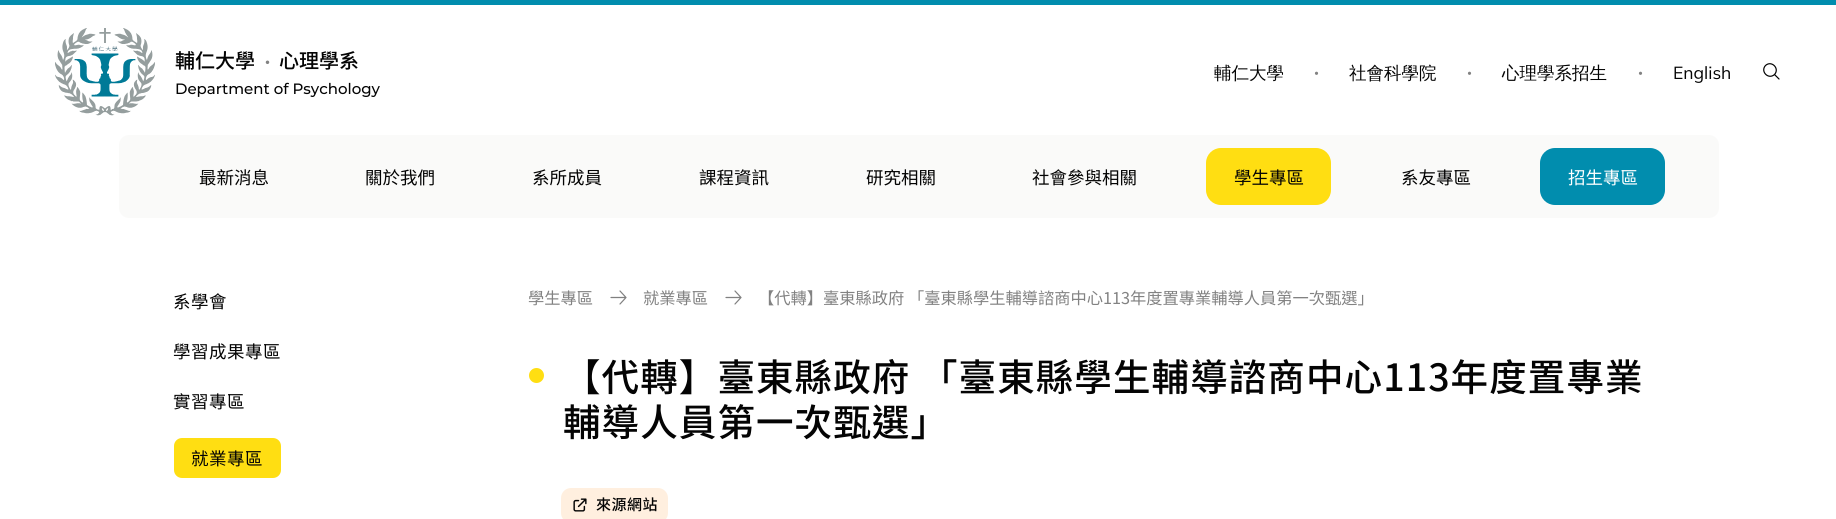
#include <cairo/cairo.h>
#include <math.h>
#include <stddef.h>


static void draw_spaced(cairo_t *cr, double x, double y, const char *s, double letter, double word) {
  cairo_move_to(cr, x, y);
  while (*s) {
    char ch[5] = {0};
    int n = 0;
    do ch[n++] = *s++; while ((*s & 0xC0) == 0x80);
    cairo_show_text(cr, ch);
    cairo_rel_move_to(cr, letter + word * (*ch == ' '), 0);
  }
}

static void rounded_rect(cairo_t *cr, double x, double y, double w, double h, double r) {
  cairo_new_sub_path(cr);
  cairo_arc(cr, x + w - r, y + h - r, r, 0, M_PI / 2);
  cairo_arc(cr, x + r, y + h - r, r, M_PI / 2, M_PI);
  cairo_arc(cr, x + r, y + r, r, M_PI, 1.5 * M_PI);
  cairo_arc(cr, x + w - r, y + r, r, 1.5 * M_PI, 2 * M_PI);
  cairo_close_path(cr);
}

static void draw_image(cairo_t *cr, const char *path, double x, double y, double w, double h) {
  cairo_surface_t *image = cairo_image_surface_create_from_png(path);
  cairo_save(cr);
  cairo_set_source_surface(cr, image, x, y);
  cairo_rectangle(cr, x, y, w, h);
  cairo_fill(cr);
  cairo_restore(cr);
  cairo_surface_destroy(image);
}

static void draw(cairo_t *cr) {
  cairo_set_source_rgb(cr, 1, 1, 1);
  cairo_paint(cr);
  cairo_set_source_rgb(cr, 1 / 255.0, 141 / 255.0, 174 / 255.0);
  cairo_rectangle(cr, 0, 0, 1836, 5);
  cairo_fill(cr);
  draw_image(cr, "images/1.png", 55, 28, 100, 88);
  cairo_new_path(cr);
  cairo_move_to(cr, 1779, 79);
  cairo_line_to(cr, 1774.5, 74.5);
  cairo_move_to(cr, 1774.5, 74.5);
  cairo_curve_to(cr, 1780, 68.5, 1771.5, 60, 1765.5, 65.5);
  cairo_curve_to(cr, 1760, 71.5, 1768.5, 80, 1774.5, 74.5);
  cairo_close_path(cr);
  cairo_set_source_rgb(cr, 0, 0, 0);
  cairo_set_line_width(cr, 1.2);
  cairo_set_line_cap(cr, CAIRO_LINE_CAP_ROUND);
  cairo_set_line_join(cr, CAIRO_LINE_JOIN_ROUND);
  cairo_stroke(cr);
  cairo_set_source_rgb(cr, 250 / 255.0, 250 / 255.0, 249 / 255.0);
  rounded_rect(cr, 119, 135, 1600, 83, 10);
  cairo_fill(cr);
  cairo_set_source_rgb(cr, 1, 222 / 255.0, 18 / 255.0);
  rounded_rect(cr, 1206, 148, 125, 57, 15);
  cairo_fill(cr);
  cairo_set_source_rgb(cr, 1 / 255.0, 141 / 255.0, 174 / 255.0);
  rounded_rect(cr, 1540, 148, 125, 57, 15);
  cairo_fill(cr);
  cairo_set_source_rgb(cr, 1, 222 / 255.0, 18 / 255.0);
  rounded_rect(cr, 174, 438, 107, 40, 8);
  cairo_fill(cr);
  cairo_new_path(cr);
  cairo_move_to(cr, 620, 291);
  cairo_line_to(cr, 626, 297.5);
  cairo_move_to(cr, 626, 297.5);
  cairo_line_to(cr, 620, 304);
  cairo_move_to(cr, 626, 297.5);
  cairo_line_to(cr, 611, 297.5);
  cairo_set_source_rgb(cr, 128 / 255.0, 128 / 255.0, 128 / 255.0);
  cairo_stroke(cr);
  cairo_new_path(cr);
  cairo_move_to(cr, 735, 291);
  cairo_line_to(cr, 741, 297.5);
  cairo_move_to(cr, 741, 297.5);
  cairo_line_to(cr, 735, 304);
  cairo_move_to(cr, 741, 297.5);
  cairo_line_to(cr, 726, 297.5);
  cairo_stroke(cr);
  cairo_set_source_rgb(cr, 1, 222 / 255.0, 18 / 255.0);
  cairo_arc(cr, 536.5, 375.5, 7.5, 0, 2 * M_PI);
  cairo_fill(cr);
  cairo_set_source_rgb(cr, 1, 239 / 255.0, 223 / 255.0);
  rounded_rect(cr, 561, 488, 107, 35, 10);
  cairo_fill(cr);
  draw_image(cr, "images/2.png", 573, 498, 14, 14);
  cairo_select_font_face(cr, "Noto Sans TC Medium", CAIRO_FONT_SLANT_NORMAL, CAIRO_FONT_WEIGHT_NORMAL);
  cairo_set_font_size(cr, 20);
  cairo_set_source_rgb(cr, 4 / 255.0, 4 / 255.0, 4 / 255.0);
  cairo_move_to(cr, 175, 68);
  cairo_show_text(cr, "輔仁大學");
  cairo_set_font_size(cr, 15);
  cairo_set_source_rgb(cr, 130 / 255.0, 130 / 255.0, 130 / 255.0);
  cairo_move_to(cr, 260, 68);
  cairo_show_text(cr, "・");
  cairo_set_font_size(cr, 20);
  cairo_set_source_rgb(cr, 4 / 255.0, 4 / 255.0, 4 / 255.0);
  cairo_move_to(cr, 279, 68);
  cairo_show_text(cr, "心理學系");
  cairo_select_font_face(cr, "Montserrat Medium", CAIRO_FONT_SLANT_NORMAL, CAIRO_FONT_WEIGHT_NORMAL);
  cairo_set_font_size(cr, 15);
  cairo_move_to(cr, 175, 94);
  cairo_show_text(cr, "Department of Psychology");
  cairo_select_font_face(cr, "WenQuanYi Zen Hei Medium", CAIRO_FONT_SLANT_NORMAL, CAIRO_FONT_WEIGHT_NORMAL);
  cairo_set_font_size(cr, 17.5);
  cairo_move_to(cr, 1214, 79);
  cairo_show_text(cr, "輔仁大學");
  cairo_select_font_face(cr, "Noto Sans TC", CAIRO_FONT_SLANT_NORMAL, CAIRO_FONT_WEIGHT_NORMAL);
  cairo_set_font_size(cr, 15);
  cairo_set_source_rgb(cr, 130 / 255.0, 130 / 255.0, 130 / 255.0);
  cairo_move_to(cr, 1309, 79);
  cairo_show_text(cr, "・");
  cairo_select_font_face(cr, "WenQuanYi Zen Hei Medium", CAIRO_FONT_SLANT_NORMAL, CAIRO_FONT_WEIGHT_NORMAL);
  cairo_set_font_size(cr, 17.5);
  cairo_set_source_rgb(cr, 4 / 255.0, 4 / 255.0, 4 / 255.0);
  cairo_move_to(cr, 1349, 79);
  cairo_show_text(cr, "社會科學院");
  cairo_select_font_face(cr, "Noto Sans TC", CAIRO_FONT_SLANT_NORMAL, CAIRO_FONT_WEIGHT_NORMAL);
  cairo_set_font_size(cr, 15);
  cairo_set_source_rgb(cr, 130 / 255.0, 130 / 255.0, 130 / 255.0);
  cairo_move_to(cr, 1462, 79);
  cairo_show_text(cr, "・");
  cairo_select_font_face(cr, "WenQuanYi Zen Hei Medium", CAIRO_FONT_SLANT_NORMAL, CAIRO_FONT_WEIGHT_NORMAL);
  cairo_set_font_size(cr, 17.5);
  cairo_set_source_rgb(cr, 4 / 255.0, 4 / 255.0, 4 / 255.0);
  cairo_move_to(cr, 1502, 79);
  cairo_show_text(cr, "心理學系招生");
  cairo_select_font_face(cr, "Noto Sans TC", CAIRO_FONT_SLANT_NORMAL, CAIRO_FONT_WEIGHT_NORMAL);
  cairo_set_font_size(cr, 15);
  cairo_set_source_rgb(cr, 130 / 255.0, 130 / 255.0, 130 / 255.0);
  cairo_move_to(cr, 1633, 79);
  cairo_show_text(cr, "・");
  cairo_select_font_face(cr, "Mulish", CAIRO_FONT_SLANT_NORMAL, CAIRO_FONT_WEIGHT_NORMAL);
  cairo_set_font_size(cr, 17.5);
  cairo_set_source_rgb(cr, 4 / 255.0, 4 / 255.0, 4 / 255.0);
  cairo_move_to(cr, 1673, 79);
  cairo_show_text(cr, "English");
  cairo_select_font_face(cr, "Noto Sans TC", CAIRO_FONT_SLANT_NORMAL, CAIRO_FONT_WEIGHT_NORMAL);
  cairo_move_to(cr, 199, 184);
  cairo_show_text(cr, "最新消息");
  cairo_move_to(cr, 365, 184);
  cairo_show_text(cr, "關於我們");
  cairo_move_to(cr, 532, 184);
  cairo_show_text(cr, "系所成員");
  cairo_move_to(cr, 699, 184);
  cairo_show_text(cr, "課程資訊");
  cairo_move_to(cr, 866, 184);
  cairo_show_text(cr, "研究相關");
  cairo_move_to(cr, 1032, 184);
  cairo_show_text(cr, "社會參與相關");
  cairo_move_to(cr, 1234, 184);
  cairo_show_text(cr, "學生專區");
  cairo_move_to(cr, 1401, 184);
  cairo_show_text(cr, "系友專區");
  cairo_set_source_rgb(cr, 1, 1, 1);
  cairo_move_to(cr, 1568, 184);
  cairo_show_text(cr, "招生專區");
  cairo_set_source_rgb(cr, 4 / 255.0, 4 / 255.0, 4 / 255.0);
  draw_spaced(cr, 173, 308, "系學會", 0.5, 0);
  draw_spaced(cr, 173, 358, "學習成果專區", 0.5, 0);
  draw_spaced(cr, 173, 408, "實習專區", 0.5, 0);
  draw_spaced(cr, 191, 465, "就業專區", 0.5, 0);
  cairo_set_font_size(cr, 16.25);
  cairo_set_source_rgb(cr, 130 / 255.0, 130 / 255.0, 130 / 255.0);
  cairo_move_to(cr, 528, 304);
  cairo_show_text(cr, "學生專區");
  cairo_move_to(cr, 643, 304);
  cairo_show_text(cr, "就業專區");
  cairo_move_to(cr, 758, 304);
  cairo_show_text(cr, "【代轉】臺東縣政府 「臺東縣學生輔導諮商中心113年度置專業輔導人員第一次甄選」");
  cairo_select_font_face(cr, "Noto Sans TC Medium", CAIRO_FONT_SLANT_NORMAL, CAIRO_FONT_WEIGHT_NORMAL);
  cairo_set_font_size(cr, 37.5);
  cairo_set_source_rgb(cr, 4 / 255.0, 4 / 255.0, 4 / 255.0);
  draw_spaced(cr, 563, 391, "【代轉】臺東縣政府 「臺東縣學生輔導諮商中心113年度置專業", 1.1, 0);
  draw_spaced(cr, 563, 436, "輔導人員第一次甄選」", 1.1, 0);
  cairo_set_font_size(cr, 15);
  draw_spaced(cr, 596, 510, "來源網站", 0.5, 0);
}

int main(void) {
  cairo_surface_t *surface = cairo_image_surface_create(CAIRO_FORMAT_RGB24, 1836, 519);
  cairo_t *cr = cairo_create(surface);
  cairo_font_options_t *options = cairo_font_options_create();
  cairo_font_options_set_hint_metrics(options, CAIRO_HINT_METRICS_OFF);
  cairo_font_options_set_hint_style(options, CAIRO_HINT_STYLE_NONE);
  cairo_set_font_options(cr, options);
  cairo_set_miter_limit(cr, 4);
  draw(cr);
  cairo_surface_write_to_png(surface, "out.png");
  cairo_font_options_destroy(options);
  cairo_destroy(cr);
  cairo_surface_destroy(surface);
  return 0;
}
